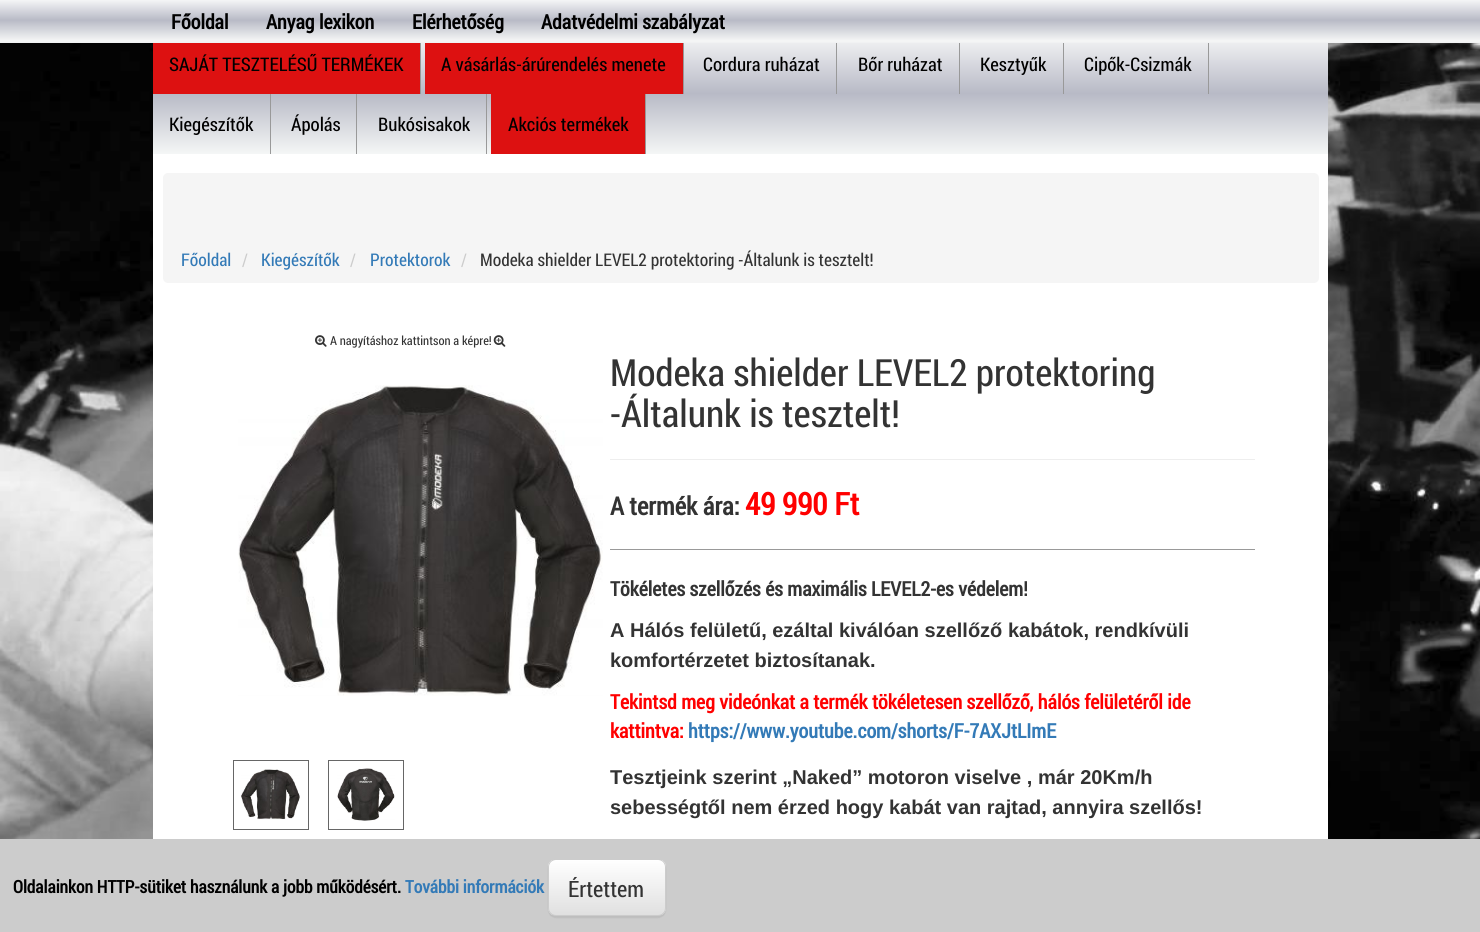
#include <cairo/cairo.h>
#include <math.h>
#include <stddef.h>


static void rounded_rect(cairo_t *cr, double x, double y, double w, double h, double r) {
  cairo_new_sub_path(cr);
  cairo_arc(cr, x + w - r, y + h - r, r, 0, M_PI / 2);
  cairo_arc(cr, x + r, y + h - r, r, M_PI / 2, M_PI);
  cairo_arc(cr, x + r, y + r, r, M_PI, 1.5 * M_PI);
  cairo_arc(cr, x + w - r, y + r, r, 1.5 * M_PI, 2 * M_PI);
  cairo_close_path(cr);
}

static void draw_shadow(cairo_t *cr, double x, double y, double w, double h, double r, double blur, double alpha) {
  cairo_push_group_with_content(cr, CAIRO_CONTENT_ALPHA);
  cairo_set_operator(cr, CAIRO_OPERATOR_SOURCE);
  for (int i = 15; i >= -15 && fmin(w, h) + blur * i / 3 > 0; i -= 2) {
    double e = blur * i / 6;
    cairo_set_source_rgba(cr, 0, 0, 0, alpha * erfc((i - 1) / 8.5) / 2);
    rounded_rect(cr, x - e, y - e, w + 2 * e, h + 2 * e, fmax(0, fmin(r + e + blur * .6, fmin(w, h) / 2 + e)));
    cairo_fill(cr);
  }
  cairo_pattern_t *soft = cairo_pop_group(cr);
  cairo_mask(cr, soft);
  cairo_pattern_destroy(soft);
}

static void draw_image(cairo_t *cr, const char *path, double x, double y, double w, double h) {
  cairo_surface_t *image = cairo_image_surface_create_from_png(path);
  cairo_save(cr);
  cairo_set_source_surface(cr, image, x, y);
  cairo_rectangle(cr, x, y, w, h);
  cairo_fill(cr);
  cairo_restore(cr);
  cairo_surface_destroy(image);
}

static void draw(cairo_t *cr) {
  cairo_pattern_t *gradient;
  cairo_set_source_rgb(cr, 1, 1, 1);
  cairo_paint(cr);
  draw_image(cr, "images/1.png", 0, 43, 1480, 796);
  gradient = cairo_pattern_create_linear(740, 35, 740, 154);
  cairo_pattern_add_color_stop_rgba(gradient, 0, 245 / 255.0, 246 / 255.0, 246 / 255.0, 1);
  cairo_pattern_add_color_stop_rgba(gradient, 0.21, 219 / 255.0, 220 / 255.0, 226 / 255.0, 1);
  cairo_pattern_add_color_stop_rgba(gradient, 0.49, 184 / 255.0, 186 / 255.0, 198 / 255.0, 1);
  cairo_pattern_add_color_stop_rgba(gradient, 0.8, 221 / 255.0, 223 / 255.0, 227 / 255.0, 1);
  cairo_pattern_add_color_stop_rgba(gradient, 1, 245 / 255.0, 246 / 255.0, 246 / 255.0, 1);
  cairo_set_source(cr, gradient);
  cairo_pattern_destroy(gradient);
  cairo_rectangle(cr, 153, 43, 1175, 111);
  cairo_fill(cr);
  cairo_set_source_rgb(cr, 153 / 255.0, 153 / 255.0, 153 / 255.0);
  cairo_rectangle(cr, 420, 35, 1, 59);
  cairo_fill(cr);
  cairo_rectangle(cr, 683, 35, 1, 59);
  cairo_fill(cr);
  cairo_rectangle(cr, 836, 35, 1, 59);
  cairo_fill(cr);
  cairo_rectangle(cr, 959, 35, 1, 59);
  cairo_fill(cr);
  cairo_rectangle(cr, 1063, 35, 1, 59);
  cairo_fill(cr);
  cairo_rectangle(cr, 1208, 35, 1, 59);
  cairo_fill(cr);
  gradient = cairo_pattern_create_linear(740, 0, 740, 41);
  cairo_pattern_add_color_stop_rgba(gradient, 0, 245 / 255.0, 246 / 255.0, 246 / 255.0, 1);
  cairo_pattern_add_color_stop_rgba(gradient, 0.21, 219 / 255.0, 220 / 255.0, 226 / 255.0, 1);
  cairo_pattern_add_color_stop_rgba(gradient, 0.49, 184 / 255.0, 186 / 255.0, 198 / 255.0, 1);
  cairo_pattern_add_color_stop_rgba(gradient, 0.8, 221 / 255.0, 223 / 255.0, 227 / 255.0, 1);
  cairo_pattern_add_color_stop_rgba(gradient, 1, 245 / 255.0, 246 / 255.0, 246 / 255.0, 1);
  cairo_set_source(cr, gradient);
  cairo_pattern_destroy(gradient);
  cairo_rectangle(cr, 0, 0, 1480, 41);
  cairo_fill(cr);
  gradient = cairo_pattern_create_linear(740, 41, 740, 83);
  cairo_pattern_add_color_stop_rgba(gradient, 0, 245 / 255.0, 246 / 255.0, 246 / 255.0, 1);
  cairo_pattern_add_color_stop_rgba(gradient, 0.21, 219 / 255.0, 220 / 255.0, 226 / 255.0, 1);
  cairo_pattern_add_color_stop_rgba(gradient, 0.49, 184 / 255.0, 186 / 255.0, 198 / 255.0, 1);
  cairo_pattern_add_color_stop_rgba(gradient, 0.8, 221 / 255.0, 223 / 255.0, 227 / 255.0, 1);
  cairo_pattern_add_color_stop_rgba(gradient, 1, 245 / 255.0, 246 / 255.0, 246 / 255.0, 1);
  cairo_set_source(cr, gradient);
  cairo_pattern_destroy(gradient);
  cairo_rectangle(cr, 0, 41, 1480, 2);
  cairo_fill(cr);
  cairo_set_source_rgb(cr, 221 / 255.0, 17 / 255.0, 17 / 255.0);
  cairo_rectangle(cr, 153, 43, 267, 51);
  cairo_fill(cr);
  cairo_rectangle(cr, 425, 43, 258, 51);
  cairo_fill(cr);
  cairo_set_source_rgb(cr, 153 / 255.0, 153 / 255.0, 153 / 255.0);
  cairo_rectangle(cr, 270, 94, 1, 60);
  cairo_fill(cr);
  cairo_rectangle(cr, 356, 94, 1, 60);
  cairo_fill(cr);
  cairo_rectangle(cr, 486, 94, 1, 60);
  cairo_fill(cr);
  cairo_set_source_rgb(cr, 221 / 255.0, 17 / 255.0, 17 / 255.0);
  cairo_rectangle(cr, 491, 94, 154, 60);
  cairo_fill(cr);
  cairo_set_source_rgb(cr, 153 / 255.0, 153 / 255.0, 153 / 255.0);
  cairo_rectangle(cr, 645, 94, 1, 60);
  cairo_fill(cr);
  cairo_set_source_rgb(cr, 1, 1, 1);
  cairo_rectangle(cr, 153, 154, 1175, 685);
  cairo_fill(cr);
  cairo_set_source_rgb(cr, 245 / 255.0, 245 / 255.0, 245 / 255.0);
  rounded_rect(cr, 163, 173, 1156, 110, 5);
  cairo_fill(cr);
  draw_image(cr, "images/2.png", 315, 335, 12, 12);
  draw_image(cr, "images/3.png", 493, 335, 13, 12);
  draw_image(cr, "images/4.png", 238, 385, 365, 311);
  cairo_rectangle(cr, 233.5, 760.5, 75, 69);
  cairo_set_source_rgb(cr, 102 / 255.0, 102 / 255.0, 102 / 255.0);
  cairo_set_line_width(cr, 1);
  cairo_stroke(cr);
  draw_image(cr, "images/5.png", 241, 769, 59, 51);
  cairo_rectangle(cr, 328.5, 760.5, 75, 69);
  cairo_stroke(cr);
  draw_image(cr, "images/6.png", 337, 768, 58, 53);
  cairo_set_source_rgb(cr, 238 / 255.0, 238 / 255.0, 238 / 255.0);
  cairo_rectangle(cr, 610, 459, 645, 1);
  cairo_fill(cr);
  cairo_set_source_rgb(cr, 153 / 255.0, 153 / 255.0, 153 / 255.0);
  cairo_rectangle(cr, 610, 549, 645, 1);
  cairo_fill(cr);
  cairo_set_source_rgb(cr, 204 / 255.0, 204 / 255.0, 204 / 255.0);
  cairo_rectangle(cr, 0, 839, 1480, 93);
  cairo_fill(cr);
  cairo_set_source_rgb(cr, 0, 0, 0);
  draw_shadow(cr, 548, 860, 118, 58, 8, 0.5, 0.07);
  cairo_save(cr);
  rounded_rect(cr, 548, 859, 118, 57, 8);
  cairo_clip(cr);
  gradient = cairo_pattern_create_linear(607, 860, 607, 915);
  cairo_pattern_add_color_stop_rgba(gradient, 0, 1, 1, 1, 1);
  cairo_pattern_add_color_stop_rgba(gradient, 1, 224 / 255.0, 224 / 255.0, 224 / 255.0, 1);
  cairo_set_source(cr, gradient);
  cairo_pattern_destroy(gradient);
  cairo_rectangle(cr, 548, 860, 118, 55);
  cairo_fill(cr);
  cairo_restore(cr);
  rounded_rect(cr, 548.5, 859.5, 117, 56, 7.5);
  cairo_set_source_rgb(cr, 204 / 255.0, 204 / 255.0, 204 / 255.0);
  cairo_stroke(cr);
  cairo_select_font_face(cr, "Roboto Condensed", CAIRO_FONT_SLANT_NORMAL, CAIRO_FONT_WEIGHT_BOLD);
  cairo_set_font_size(cr, 20);
  cairo_set_source_rgb(cr, 0, 0, 0);
  cairo_move_to(cr, 171, 29);
  cairo_show_text(cr, "Főoldal");
  cairo_move_to(cr, 266, 29);
  cairo_show_text(cr, "Anyag lexikon");
  cairo_move_to(cr, 412, 29);
  cairo_show_text(cr, "Elérhetőség");
  cairo_move_to(cr, 541, 29);
  cairo_show_text(cr, "Adatvédelmi szabályzat");
  cairo_select_font_face(cr, "Roboto Condensed", CAIRO_FONT_SLANT_NORMAL, CAIRO_FONT_WEIGHT_NORMAL);
  cairo_set_font_size(cr, 18.75);
  cairo_move_to(cr, 169, 71);
  cairo_show_text(cr, "SAJÁT TESZTELÉSŰ TERMÉKEK");
  cairo_move_to(cr, 441, 71);
  cairo_show_text(cr, "A vásárlás-árúrendelés menete");
  cairo_move_to(cr, 703, 71);
  cairo_show_text(cr, "Cordura ruházat");
  cairo_move_to(cr, 858, 71);
  cairo_show_text(cr, "Bőr ruházat");
  cairo_move_to(cr, 980, 71);
  cairo_show_text(cr, "Kesztyűk");
  cairo_move_to(cr, 1084, 71);
  cairo_show_text(cr, "Cipők-Csizmák");
  cairo_move_to(cr, 169, 131);
  cairo_show_text(cr, "Kiegészítők");
  cairo_move_to(cr, 291, 131);
  cairo_show_text(cr, "Ápolás");
  cairo_move_to(cr, 378, 131);
  cairo_show_text(cr, "Bukósisakok");
  cairo_move_to(cr, 508, 131);
  cairo_show_text(cr, "Akciós termékek");
  cairo_set_font_size(cr, 17.5);
  cairo_set_source_rgb(cr, 51 / 255.0, 122 / 255.0, 183 / 255.0);
  cairo_move_to(cr, 181, 266);
  cairo_show_text(cr, "Főoldal");
  cairo_set_source_rgb(cr, 204 / 255.0, 204 / 255.0, 204 / 255.0);
  cairo_move_to(cr, 242, 266);
  cairo_show_text(cr, "/");
  cairo_set_source_rgb(cr, 51 / 255.0, 122 / 255.0, 183 / 255.0);
  cairo_move_to(cr, 261, 266);
  cairo_show_text(cr, "Kiegészítők");
  cairo_set_source_rgb(cr, 204 / 255.0, 204 / 255.0, 204 / 255.0);
  cairo_move_to(cr, 350, 266);
  cairo_show_text(cr, "/");
  cairo_set_source_rgb(cr, 51 / 255.0, 122 / 255.0, 183 / 255.0);
  cairo_move_to(cr, 370, 266);
  cairo_show_text(cr, "Protektorok");
  cairo_set_source_rgb(cr, 204 / 255.0, 204 / 255.0, 204 / 255.0);
  cairo_move_to(cr, 461, 266);
  cairo_show_text(cr, "/");
  cairo_set_source_rgb(cr, 51 / 255.0, 51 / 255.0, 51 / 255.0);
  cairo_move_to(cr, 480, 266);
  cairo_show_text(cr, "Modeka shielder LEVEL2 protektoring -Általunk is tesztelt!");
  cairo_set_font_size(cr, 12.5);
  cairo_move_to(cr, 330, 345);
  cairo_show_text(cr, "A nagyításhoz kattintson a képre!");
  cairo_set_font_size(cr, 37.5);
  cairo_move_to(cr, 610, 386);
  cairo_show_text(cr, "Modeka shielder LEVEL2 protektoring");
  cairo_move_to(cr, 610, 427);
  cairo_show_text(cr, "-Általunk is tesztelt!");
  cairo_select_font_face(cr, "Roboto Condensed", CAIRO_FONT_SLANT_NORMAL, CAIRO_FONT_WEIGHT_BOLD);
  cairo_set_font_size(cr, 25);
  cairo_move_to(cr, 610, 515);
  cairo_show_text(cr, "A termék ára:");
  cairo_set_font_size(cr, 31);
  cairo_set_source_rgb(cr, 1, 0, 0);
  cairo_move_to(cr, 745, 515);
  cairo_show_text(cr, "49 990 Ft");
  cairo_set_font_size(cr, 20);
  cairo_set_source_rgb(cr, 51 / 255.0, 51 / 255.0, 51 / 255.0);
  cairo_move_to(cr, 610, 596);
  cairo_show_text(cr, "Tökéletes szellőzés és maximális LEVEL2-es védelem!");
  cairo_select_font_face(cr, "Liberation Sans", CAIRO_FONT_SLANT_NORMAL, CAIRO_FONT_WEIGHT_BOLD);
  cairo_move_to(cr, 610, 637);
  cairo_show_text(cr, "A Hálós felületű, ezáltal kiválóan szellőző kabátok, rendkívüli");
  cairo_move_to(cr, 610, 667);
  cairo_show_text(cr, "komfortérzetet biztosítanak.");
  cairo_select_font_face(cr, "Roboto Condensed", CAIRO_FONT_SLANT_NORMAL, CAIRO_FONT_WEIGHT_BOLD);
  cairo_set_source_rgb(cr, 1, 0, 0);
  cairo_move_to(cr, 610, 709);
  cairo_show_text(cr, "Tekintsd meg videónkat a termék tökéletesen szellőző, hálós felületéről ide");
  cairo_move_to(cr, 610, 738);
  cairo_show_text(cr, "kattintva:");
  cairo_set_source_rgb(cr, 51 / 255.0, 122 / 255.0, 183 / 255.0);
  cairo_move_to(cr, 688, 738);
  cairo_show_text(cr, "https://www.youtube.com/shorts/F-7AXJtLImE");
  cairo_select_font_face(cr, "Liberation Sans", CAIRO_FONT_SLANT_NORMAL, CAIRO_FONT_WEIGHT_BOLD);
  cairo_set_source_rgb(cr, 51 / 255.0, 51 / 255.0, 51 / 255.0);
  cairo_move_to(cr, 610, 784);
  cairo_show_text(cr, "Tesztjeink szerint „Naked” motoron viselve , már 20Km/h");
  cairo_move_to(cr, 610, 814);
  cairo_show_text(cr, "sebességtől nem érzed hogy kabát van rajtad, annyira szellős!");
  cairo_select_font_face(cr, "Roboto Condensed", CAIRO_FONT_SLANT_NORMAL, CAIRO_FONT_WEIGHT_BOLD);
  cairo_set_font_size(cr, 17.5);
  cairo_set_source_rgb(cr, 0, 0, 0);
  cairo_move_to(cr, 13, 893);
  cairo_show_text(cr, "Oldalainkon HTTP-sütiket használunk a jobb működésért.");
  cairo_set_source_rgb(cr, 51 / 255.0, 122 / 255.0, 183 / 255.0);
  cairo_move_to(cr, 405, 893);
  cairo_show_text(cr, "További információk");
  cairo_select_font_face(cr, "Roboto Condensed", CAIRO_FONT_SLANT_NORMAL, CAIRO_FONT_WEIGHT_NORMAL);
  cairo_set_font_size(cr, 22.5);
  cairo_set_source_rgb(cr, 51 / 255.0, 51 / 255.0, 51 / 255.0);
  cairo_move_to(cr, 568, 897);
  cairo_show_text(cr, "Értettem");
}

int main(void) {
  cairo_surface_t *surface = cairo_image_surface_create(CAIRO_FORMAT_RGB24, 1480, 932);
  cairo_t *cr = cairo_create(surface);
  cairo_font_options_t *options = cairo_font_options_create();
  cairo_font_options_set_hint_metrics(options, CAIRO_HINT_METRICS_OFF);
  cairo_font_options_set_hint_style(options, CAIRO_HINT_STYLE_NONE);
  cairo_set_font_options(cr, options);
  cairo_set_miter_limit(cr, 4);
  draw(cr);
  cairo_surface_write_to_png(surface, "out.png");
  cairo_font_options_destroy(options);
  cairo_destroy(cr);
  cairo_surface_destroy(surface);
  return 0;
}
